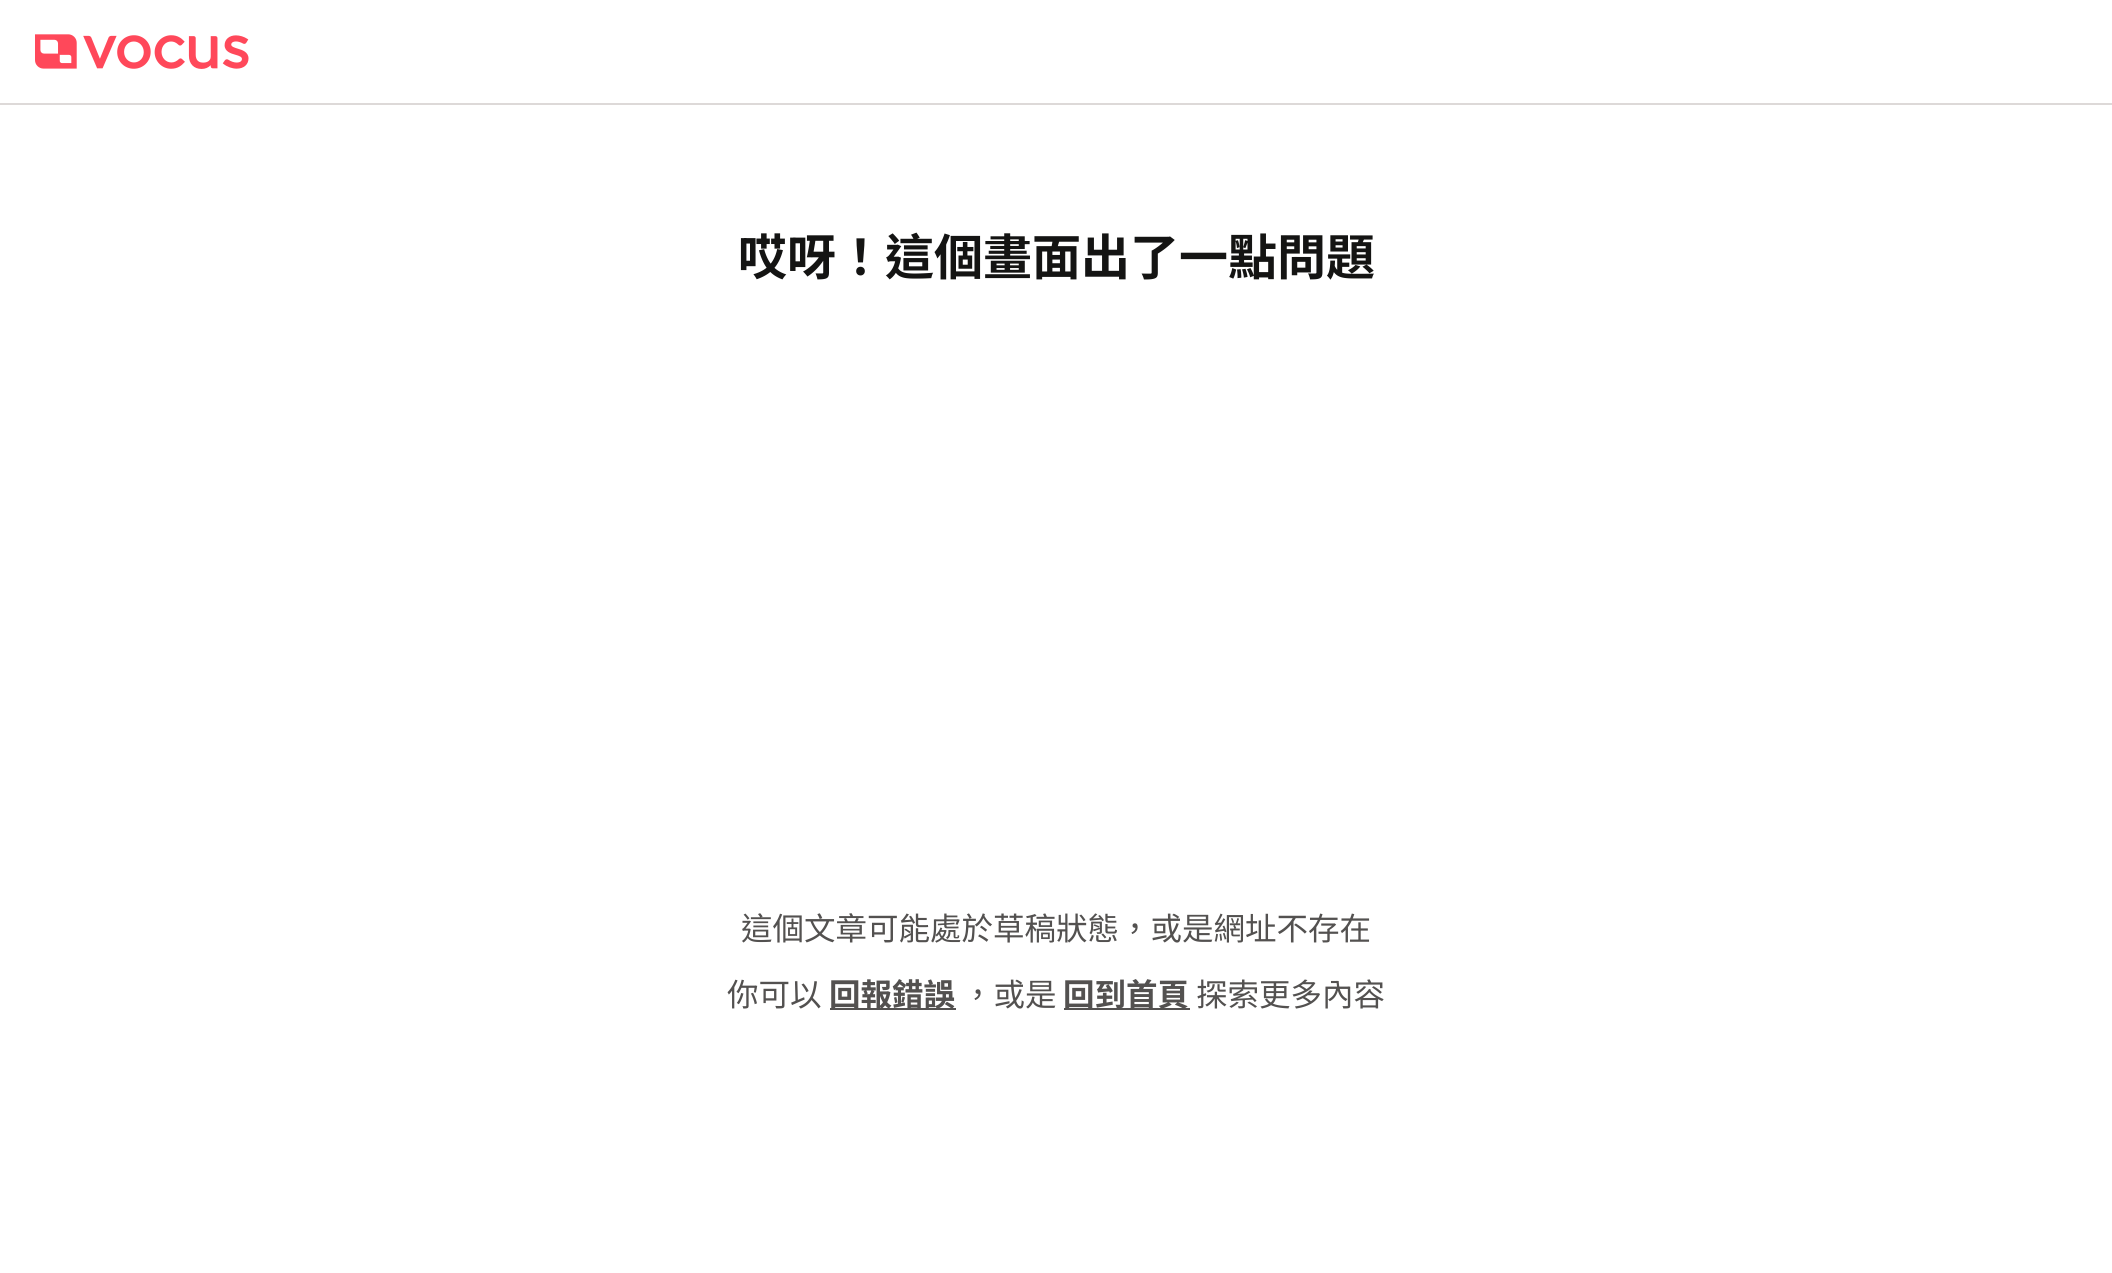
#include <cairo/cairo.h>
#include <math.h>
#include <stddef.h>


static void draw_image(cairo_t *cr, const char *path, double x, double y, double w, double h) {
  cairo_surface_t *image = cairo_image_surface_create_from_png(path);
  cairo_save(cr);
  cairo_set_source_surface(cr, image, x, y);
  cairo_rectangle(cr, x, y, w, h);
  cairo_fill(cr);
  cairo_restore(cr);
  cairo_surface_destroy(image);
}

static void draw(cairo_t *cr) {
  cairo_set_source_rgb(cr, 1, 1, 1);
  cairo_paint(cr);
  cairo_set_source_rgb(cr, 221 / 255.0, 217 / 255.0, 216 / 255.0);
  cairo_rectangle(cr, 0, 103, 2112, 2);
  cairo_fill(cr);
  draw_image(cr, "images/1.png", 35, 34, 214, 35);
  cairo_set_source_rgb(cr, 83 / 255.0, 81 / 255.0, 80 / 255.0);
  cairo_rectangle(cr, 830, 1008, 126, 2);
  cairo_fill(cr);
  cairo_rectangle(cr, 1064, 1008, 126, 2);
  cairo_fill(cr);
  cairo_select_font_face(cr, "Noto Sans TC", CAIRO_FONT_SLANT_NORMAL, CAIRO_FONT_WEIGHT_BOLD);
  cairo_set_font_size(cr, 49);
  cairo_set_source_rgb(cr, 20 / 255.0, 20 / 255.0, 19 / 255.0);
  cairo_move_to(cr, 738, 275);
  cairo_show_text(cr, "哎呀！這個畫面出了一點問題");
  cairo_select_font_face(cr, "Noto Sans TC", CAIRO_FONT_SLANT_NORMAL, CAIRO_FONT_WEIGHT_NORMAL);
  cairo_set_font_size(cr, 31.5);
  cairo_set_source_rgb(cr, 83 / 255.0, 81 / 255.0, 80 / 255.0);
  cairo_move_to(cr, 741, 940);
  cairo_show_text(cr, "這個文章可能處於草稿狀態，或是網址不存在");
  cairo_move_to(cr, 727, 1006);
  cairo_show_text(cr, "你可以");
  cairo_select_font_face(cr, "Noto Sans TC", CAIRO_FONT_SLANT_NORMAL, CAIRO_FONT_WEIGHT_BOLD);
  cairo_move_to(cr, 829, 1006);
  cairo_show_text(cr, "回報錯誤");
  cairo_select_font_face(cr, "Noto Sans TC", CAIRO_FONT_SLANT_NORMAL, CAIRO_FONT_WEIGHT_NORMAL);
  cairo_move_to(cr, 962, 1006);
  cairo_show_text(cr, "，或是");
  cairo_select_font_face(cr, "Noto Sans TC", CAIRO_FONT_SLANT_NORMAL, CAIRO_FONT_WEIGHT_BOLD);
  cairo_move_to(cr, 1063, 1006);
  cairo_show_text(cr, "回到首頁");
  cairo_select_font_face(cr, "Noto Sans TC", CAIRO_FONT_SLANT_NORMAL, CAIRO_FONT_WEIGHT_NORMAL);
  cairo_move_to(cr, 1196, 1006);
  cairo_show_text(cr, "探索更多內容");
}

int main(void) {
  cairo_surface_t *surface = cairo_image_surface_create(CAIRO_FORMAT_RGB24, 2112, 1273);
  cairo_t *cr = cairo_create(surface);
  cairo_font_options_t *options = cairo_font_options_create();
  cairo_font_options_set_hint_metrics(options, CAIRO_HINT_METRICS_OFF);
  cairo_font_options_set_hint_style(options, CAIRO_HINT_STYLE_NONE);
  cairo_set_font_options(cr, options);
  cairo_set_miter_limit(cr, 4);
  draw(cr);
  cairo_surface_write_to_png(surface, "out.png");
  cairo_font_options_destroy(options);
  cairo_destroy(cr);
  cairo_surface_destroy(surface);
  return 0;
}
